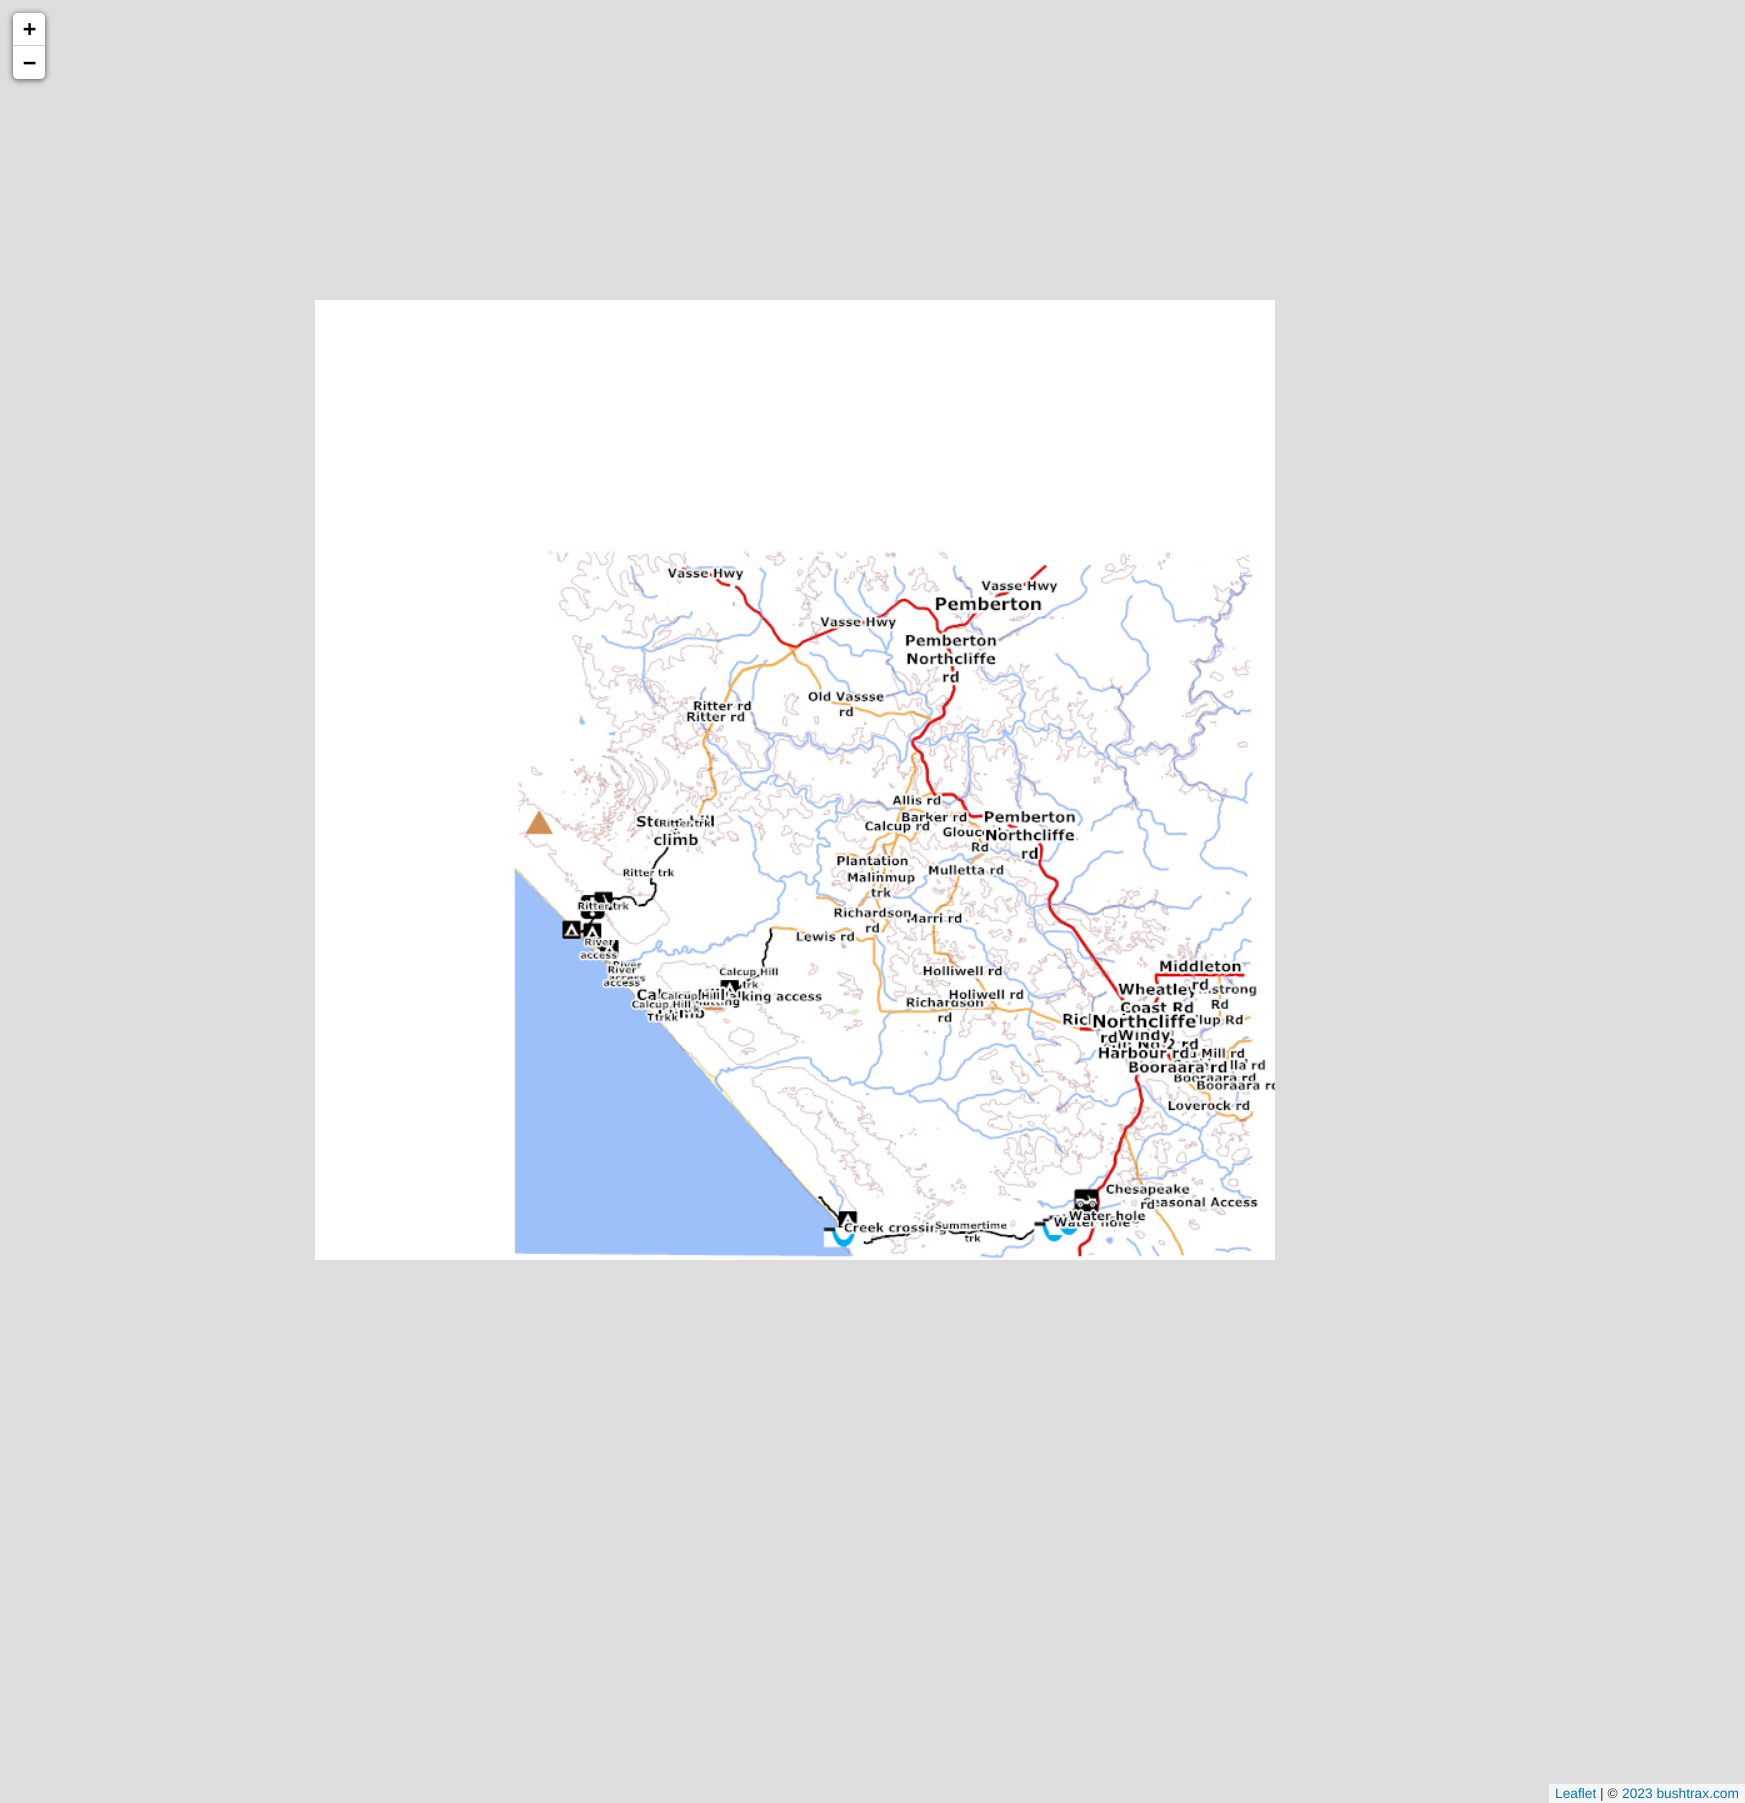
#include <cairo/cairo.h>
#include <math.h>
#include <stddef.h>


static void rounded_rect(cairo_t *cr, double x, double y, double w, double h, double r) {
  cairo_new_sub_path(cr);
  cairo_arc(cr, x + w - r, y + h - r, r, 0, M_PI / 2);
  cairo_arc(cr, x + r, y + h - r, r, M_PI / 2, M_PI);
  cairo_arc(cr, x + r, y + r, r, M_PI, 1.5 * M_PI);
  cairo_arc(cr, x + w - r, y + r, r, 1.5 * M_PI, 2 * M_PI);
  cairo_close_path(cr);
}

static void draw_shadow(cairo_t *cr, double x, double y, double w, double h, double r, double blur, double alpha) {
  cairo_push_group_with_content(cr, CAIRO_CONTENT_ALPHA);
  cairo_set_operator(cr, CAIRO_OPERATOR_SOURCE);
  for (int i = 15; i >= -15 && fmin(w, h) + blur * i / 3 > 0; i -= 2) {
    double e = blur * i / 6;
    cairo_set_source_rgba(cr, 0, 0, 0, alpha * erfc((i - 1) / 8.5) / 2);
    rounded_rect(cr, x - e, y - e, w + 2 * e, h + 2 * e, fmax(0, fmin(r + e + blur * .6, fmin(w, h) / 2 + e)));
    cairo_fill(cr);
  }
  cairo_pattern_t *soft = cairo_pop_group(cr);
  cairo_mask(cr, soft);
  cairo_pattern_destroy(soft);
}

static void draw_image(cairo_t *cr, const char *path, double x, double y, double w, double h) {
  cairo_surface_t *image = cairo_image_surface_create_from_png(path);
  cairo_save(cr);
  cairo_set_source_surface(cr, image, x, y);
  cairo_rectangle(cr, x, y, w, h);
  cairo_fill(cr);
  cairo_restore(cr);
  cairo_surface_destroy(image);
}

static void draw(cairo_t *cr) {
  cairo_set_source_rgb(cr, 221 / 255.0, 221 / 255.0, 221 / 255.0);
  cairo_paint(cr);
  cairo_set_source_rgb(cr, 0, 0, 0);
  draw_shadow(cr, 13, 14, 32, 66, 5, 3, 0.65);
  cairo_set_source_rgb(cr, 1, 1, 1);
  cairo_new_path(cr);
  cairo_move_to(cr, 18, 13);
  cairo_line_to(cr, 40, 13);
  cairo_curve_to(cr, 43, 13, 45, 15, 45, 18);
  cairo_line_to(cr, 45, 46);
  cairo_line_to(cr, 13, 46);
  cairo_line_to(cr, 13, 18);
  cairo_curve_to(cr, 13, 15, 15, 13, 18, 13);
  cairo_close_path(cr);
  cairo_fill(cr);
  cairo_set_source_rgb(cr, 204 / 255.0, 204 / 255.0, 204 / 255.0);
  cairo_rectangle(cr, 13, 45, 32, 1);
  cairo_fill(cr);
  cairo_set_source_rgb(cr, 1, 1, 1);
  cairo_new_path(cr);
  cairo_move_to(cr, 13, 46);
  cairo_line_to(cr, 45, 46);
  cairo_line_to(cr, 45, 74);
  cairo_curve_to(cr, 45, 77, 43, 79, 40, 79);
  cairo_line_to(cr, 18, 79);
  cairo_curve_to(cr, 15, 79, 13, 77, 13, 74);
  cairo_close_path(cr);
  cairo_fill(cr);
  cairo_set_source_rgb(cr, 245 / 255.0, 245 / 255.0, 245 / 255.0);
  cairo_rectangle(cr, 1549, 1784, 196, 19);
  cairo_fill(cr);
  draw_image(cr, "images/1.png", 315, 300, 320, 320);
  draw_image(cr, "images/2.png", 635, 300, 320, 320);
  draw_image(cr, "images/3.png", 955, 300, 320, 320);
  draw_image(cr, "images/4.png", 315, 620, 320, 320);
  draw_image(cr, "images/5.png", 635, 620, 320, 320);
  draw_image(cr, "images/6.png", 955, 620, 320, 320);
  draw_image(cr, "images/7.png", 315, 940, 320, 320);
  draw_image(cr, "images/8.png", 635, 940, 320, 320);
  draw_image(cr, "images/9.png", 955, 940, 320, 320);
  cairo_select_font_face(cr, "DejaVu Sans Mono", CAIRO_FONT_SLANT_NORMAL, CAIRO_FONT_WEIGHT_BOLD);
  cairo_set_font_size(cr, 22);
  cairo_set_source_rgb(cr, 0, 0, 0);
  cairo_move_to(cr, 23, 36);
  cairo_show_text(cr, "+");
  cairo_move_to(cr, 23, 70);
  cairo_show_text(cr, "−");
  cairo_select_font_face(cr, "Liberation Sans", CAIRO_FONT_SLANT_NORMAL, CAIRO_FONT_WEIGHT_NORMAL);
  cairo_set_font_size(cr, 13.75);
  cairo_set_source_rgb(cr, 0, 120 / 255.0, 168 / 255.0);
  cairo_move_to(cr, 1555, 1798);
  cairo_show_text(cr, "Leaflet");
  cairo_set_source_rgb(cr, 51 / 255.0, 51 / 255.0, 51 / 255.0);
  cairo_move_to(cr, 1600, 1798);
  cairo_show_text(cr, "| ©");
  cairo_set_source_rgb(cr, 0, 120 / 255.0, 168 / 255.0);
  cairo_move_to(cr, 1622, 1798);
  cairo_show_text(cr, "2023 bushtrax.com");
}

int main(void) {
  cairo_surface_t *surface = cairo_image_surface_create(CAIRO_FORMAT_RGB24, 1745, 1803);
  cairo_t *cr = cairo_create(surface);
  cairo_font_options_t *options = cairo_font_options_create();
  cairo_font_options_set_hint_metrics(options, CAIRO_HINT_METRICS_OFF);
  cairo_font_options_set_hint_style(options, CAIRO_HINT_STYLE_NONE);
  cairo_set_font_options(cr, options);
  cairo_set_miter_limit(cr, 4);
  draw(cr);
  cairo_surface_write_to_png(surface, "out.png");
  cairo_font_options_destroy(options);
  cairo_destroy(cr);
  cairo_surface_destroy(surface);
  return 0;
}
